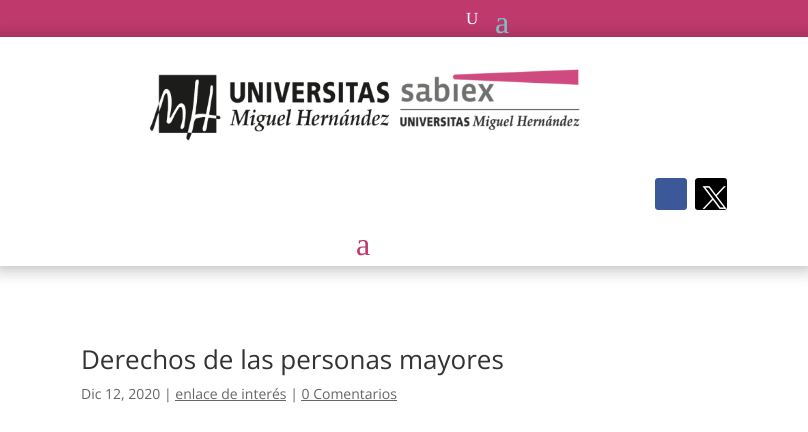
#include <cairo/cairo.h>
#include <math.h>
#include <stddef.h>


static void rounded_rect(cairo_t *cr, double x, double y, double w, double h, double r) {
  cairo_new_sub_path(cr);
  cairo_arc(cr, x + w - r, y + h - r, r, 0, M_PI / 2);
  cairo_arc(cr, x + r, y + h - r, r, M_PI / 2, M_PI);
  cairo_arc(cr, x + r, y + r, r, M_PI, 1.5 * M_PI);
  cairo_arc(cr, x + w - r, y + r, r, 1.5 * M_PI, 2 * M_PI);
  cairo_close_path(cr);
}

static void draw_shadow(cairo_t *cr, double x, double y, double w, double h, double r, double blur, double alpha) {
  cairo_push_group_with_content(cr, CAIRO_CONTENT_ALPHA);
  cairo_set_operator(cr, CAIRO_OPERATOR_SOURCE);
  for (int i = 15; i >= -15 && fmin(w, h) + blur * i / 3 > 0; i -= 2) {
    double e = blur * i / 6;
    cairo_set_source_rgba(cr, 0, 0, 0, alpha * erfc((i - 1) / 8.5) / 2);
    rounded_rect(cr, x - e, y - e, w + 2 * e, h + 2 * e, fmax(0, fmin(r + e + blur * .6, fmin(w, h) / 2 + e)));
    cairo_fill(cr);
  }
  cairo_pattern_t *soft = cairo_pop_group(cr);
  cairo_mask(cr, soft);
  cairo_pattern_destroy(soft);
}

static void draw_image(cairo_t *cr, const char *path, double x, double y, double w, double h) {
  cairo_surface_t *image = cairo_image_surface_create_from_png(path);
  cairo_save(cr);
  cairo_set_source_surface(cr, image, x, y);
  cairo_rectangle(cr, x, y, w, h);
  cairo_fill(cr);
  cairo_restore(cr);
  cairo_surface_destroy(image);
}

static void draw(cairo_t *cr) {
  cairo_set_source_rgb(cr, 1, 1, 1);
  cairo_paint(cr);
  cairo_set_source_rgb(cr, 191 / 255.0, 57 / 255.0, 108 / 255.0);
  cairo_rectangle(cr, 0, 0, 808, 37);
  cairo_fill(cr);
  cairo_set_source_rgb(cr, 0, 0, 0);
  draw_shadow(cr, 0, 39, 808, 229, 0, 9, 0.3);
  cairo_set_source_rgb(cr, 1, 1, 1);
  cairo_rectangle(cr, 0, 37, 808, 229);
  cairo_fill(cr);
  draw_image(cr, "images/1.png", 149, 69, 431, 72);
  cairo_set_source_rgb(cr, 59 / 255.0, 89 / 255.0, 152 / 255.0);
  rounded_rect(cr, 655, 178, 32, 32, 3);
  cairo_fill(cr);
  draw_image(cr, "images/2.png", 695, 178, 32, 32);
  cairo_set_source_rgb(cr, 102 / 255.0, 102 / 255.0, 102 / 255.0);
  cairo_rectangle(cr, 175, 400, 111, 1);
  cairo_fill(cr);
  cairo_rectangle(cr, 301, 400, 96, 1);
  cairo_fill(cr);
  cairo_select_font_face(cr, "Liberation Serif", CAIRO_FONT_SLANT_NORMAL, CAIRO_FONT_WEIGHT_NORMAL);
  cairo_set_font_size(cr, 17);
  cairo_set_source_rgb(cr, 1, 1, 1);
  cairo_move_to(cr, 466, 24);
  cairo_show_text(cr, "U");
  cairo_set_font_size(cr, 32);
  cairo_set_source_rgb(cr, 126 / 255.0, 190 / 255.0, 197 / 255.0);
  cairo_move_to(cr, 495, 33);
  cairo_show_text(cr, "a");
  cairo_set_source_rgb(cr, 191 / 255.0, 57 / 255.0, 108 / 255.0);
  cairo_move_to(cr, 356, 255);
  cairo_show_text(cr, "a");
  cairo_select_font_face(cr, "Open Sans", CAIRO_FONT_SLANT_NORMAL, CAIRO_FONT_WEIGHT_NORMAL);
  cairo_set_font_size(cr, 26);
  cairo_set_source_rgb(cr, 51 / 255.0, 51 / 255.0, 51 / 255.0);
  cairo_move_to(cr, 81, 369);
  cairo_show_text(cr, "Derechos de las personas mayores");
  cairo_set_font_size(cr, 14);
  cairo_set_source_rgb(cr, 102 / 255.0, 102 / 255.0, 102 / 255.0);
  cairo_move_to(cr, 81, 399);
  cairo_show_text(cr, "Dic 12, 2020 | enlace de interés | 0 Comentarios");
}

int main(void) {
  cairo_surface_t *surface = cairo_image_surface_create(CAIRO_FORMAT_RGB24, 808, 432);
  cairo_t *cr = cairo_create(surface);
  cairo_font_options_t *options = cairo_font_options_create();
  cairo_font_options_set_hint_metrics(options, CAIRO_HINT_METRICS_OFF);
  cairo_font_options_set_hint_style(options, CAIRO_HINT_STYLE_NONE);
  cairo_set_font_options(cr, options);
  cairo_set_miter_limit(cr, 4);
  draw(cr);
  cairo_surface_write_to_png(surface, "out.png");
  cairo_font_options_destroy(options);
  cairo_destroy(cr);
  cairo_surface_destroy(surface);
  return 0;
}
